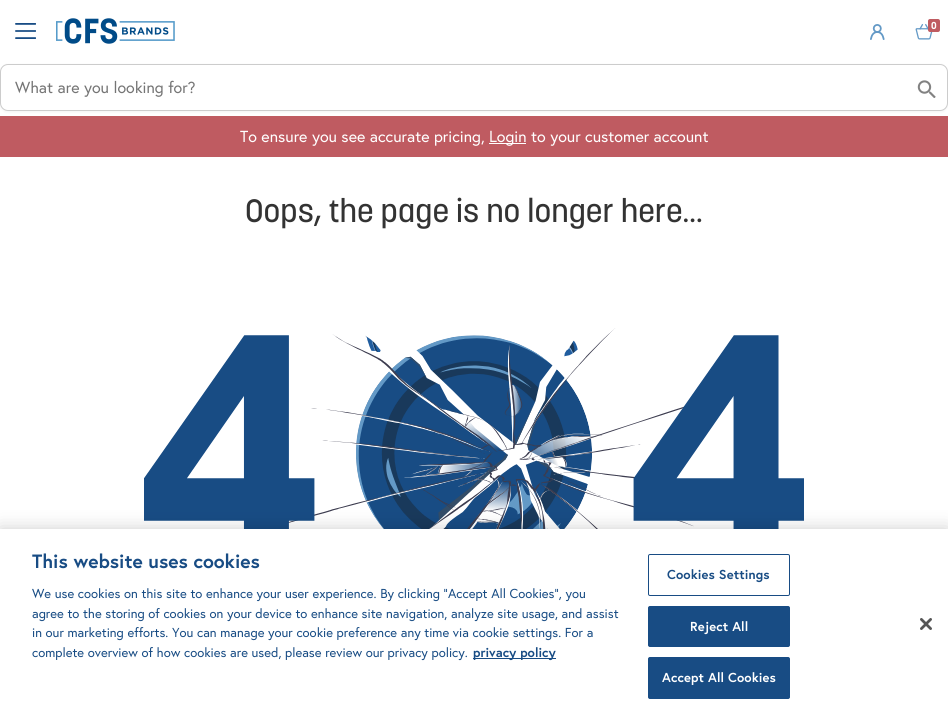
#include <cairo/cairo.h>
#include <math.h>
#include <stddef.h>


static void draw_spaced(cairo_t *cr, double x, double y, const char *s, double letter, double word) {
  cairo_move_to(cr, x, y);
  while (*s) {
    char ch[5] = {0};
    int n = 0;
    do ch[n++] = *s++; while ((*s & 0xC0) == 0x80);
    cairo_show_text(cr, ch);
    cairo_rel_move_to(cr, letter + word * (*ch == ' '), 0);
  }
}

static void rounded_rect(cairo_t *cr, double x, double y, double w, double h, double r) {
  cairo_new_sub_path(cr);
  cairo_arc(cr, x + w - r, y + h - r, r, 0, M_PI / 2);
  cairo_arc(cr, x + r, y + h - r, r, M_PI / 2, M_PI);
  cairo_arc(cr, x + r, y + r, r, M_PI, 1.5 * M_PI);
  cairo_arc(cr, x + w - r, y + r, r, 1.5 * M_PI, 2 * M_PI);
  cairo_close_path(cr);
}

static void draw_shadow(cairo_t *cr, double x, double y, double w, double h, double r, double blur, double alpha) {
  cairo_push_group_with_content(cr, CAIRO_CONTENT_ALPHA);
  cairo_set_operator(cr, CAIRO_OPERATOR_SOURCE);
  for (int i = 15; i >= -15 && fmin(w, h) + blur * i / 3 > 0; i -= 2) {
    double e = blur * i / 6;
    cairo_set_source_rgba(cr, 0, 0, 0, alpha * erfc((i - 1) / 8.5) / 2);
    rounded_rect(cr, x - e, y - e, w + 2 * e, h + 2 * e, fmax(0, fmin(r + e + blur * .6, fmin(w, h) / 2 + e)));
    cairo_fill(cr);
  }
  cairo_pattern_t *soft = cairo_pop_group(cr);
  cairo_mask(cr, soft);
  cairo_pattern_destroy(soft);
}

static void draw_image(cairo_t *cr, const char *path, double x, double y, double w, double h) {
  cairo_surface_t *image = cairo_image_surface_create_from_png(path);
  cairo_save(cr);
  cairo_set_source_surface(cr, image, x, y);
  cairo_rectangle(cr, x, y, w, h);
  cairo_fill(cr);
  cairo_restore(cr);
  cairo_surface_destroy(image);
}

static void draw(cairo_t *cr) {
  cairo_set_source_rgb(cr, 1, 1, 1);
  cairo_paint(cr);
  draw_image(cr, "images/1.png", 15, 23, 21, 16);
  draw_image(cr, "images/2.png", 56, 18, 119, 26);
  draw_image(cr, "images/3.png", 870, 24, 15, 16);
  draw_image(cr, "images/4.png", 915, 24, 18, 16);
  cairo_set_source_rgb(cr, 191 / 255.0, 91 / 255.0, 97 / 255.0);
  rounded_rect(cr, 928, 19, 12, 13, 2);
  cairo_fill(cr);
  cairo_set_source_rgb(cr, 0, 0, 0);
  draw_shadow(cr, 0, 65, 948, 47, 8, 1.5, 0.05);
  cairo_set_source_rgb(cr, 1, 1, 1);
  rounded_rect(cr, 0.5, 64.5, 947, 46, 7.5);
  cairo_fill_preserve(cr);
  cairo_set_source_rgb(cr, 204 / 255.0, 204 / 255.0, 204 / 255.0);
  cairo_set_line_width(cr, 1);
  cairo_stroke(cr);
  draw_image(cr, "images/5.png", 917, 80, 19, 18);
  cairo_set_source_rgb(cr, 191 / 255.0, 91 / 255.0, 97 / 255.0);
  cairo_rectangle(cr, 0, 116, 948, 41);
  cairo_fill(cr);
  cairo_set_source_rgb(cr, 1, 1, 1);
  cairo_rectangle(cr, 489, 143, 37, 1);
  cairo_fill(cr);
  draw_image(cr, "images/6.png", 144, 328, 660, 201);
  cairo_set_source_rgb(cr, 0, 0, 0);
  draw_shadow(cr, 0, 529, 948, 190, 0, 9, 0.2);
  cairo_set_source_rgb(cr, 1, 1, 1);
  cairo_rectangle(cr, 0, 529, 948, 190);
  cairo_fill(cr);
  cairo_set_source_rgb(cr, 24 / 255.0, 76 / 255.0, 132 / 255.0);
  cairo_rectangle(cr, 473, 658, 83, 1);
  cairo_fill(cr);
  rounded_rect(cr, 648.5, 554.5, 141, 41, 1.5);
  cairo_stroke(cr);
  rounded_rect(cr, 648.5, 606.5, 141, 40, 1.5);
  cairo_fill_preserve(cr);
  cairo_stroke(cr);
  rounded_rect(cr, 648.5, 657.5, 141, 41, 1.5);
  cairo_fill_preserve(cr);
  cairo_stroke(cr);
  draw_image(cr, "images/7.png", 920, 618, 12, 12);
  cairo_select_font_face(cr, "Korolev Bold", CAIRO_FONT_SLANT_NORMAL, CAIRO_FONT_WEIGHT_BOLD);
  cairo_set_font_size(cr, 10);
  cairo_set_source_rgb(cr, 1, 1, 1);
  cairo_move_to(cr, 931, 29);
  cairo_show_text(cr, "0");
  cairo_select_font_face(cr, "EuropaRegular", CAIRO_FONT_SLANT_NORMAL, CAIRO_FONT_WEIGHT_NORMAL);
  cairo_set_font_size(cr, 16);
  cairo_set_source_rgb(cr, 117 / 255.0, 117 / 255.0, 117 / 255.0);
  cairo_move_to(cr, 15, 93);
  cairo_show_text(cr, "What are you looking for?");
  cairo_set_source_rgb(cr, 1, 1, 1);
  cairo_move_to(cr, 240, 142);
  cairo_show_text(cr, "To ensure you see accurate pricing,");
  cairo_move_to(cr, 489, 142);
  cairo_show_text(cr, "Login to your customer account");
  cairo_select_font_face(cr, "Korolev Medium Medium", CAIRO_FONT_SLANT_NORMAL, CAIRO_FONT_WEIGHT_NORMAL);
  cairo_set_font_size(cr, 32);
  cairo_set_source_rgb(cr, 51 / 255.0, 51 / 255.0, 51 / 255.0);
  cairo_move_to(cr, 245, 222);
  cairo_show_text(cr, "Oops, the page is no longer here...");
  cairo_select_font_face(cr, "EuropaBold", CAIRO_FONT_SLANT_NORMAL, CAIRO_FONT_WEIGHT_BOLD);
  cairo_set_font_size(cr, 19.25);
  cairo_set_source_rgb(cr, 24 / 255.0, 76 / 255.0, 132 / 255.0);
  cairo_move_to(cr, 32, 568);
  cairo_show_text(cr, "This website uses cookies");
  cairo_select_font_face(cr, "EuropaRegular", CAIRO_FONT_SLANT_NORMAL, CAIRO_FONT_WEIGHT_NORMAL);
  cairo_set_font_size(cr, 13);
  cairo_move_to(cr, 32, 598);
  cairo_show_text(cr, "We use cookies on this site to enhance your user experience. By clicking “Accept All Cookies”, you");
  cairo_move_to(cr, 32, 618);
  cairo_show_text(cr, "agree to the storing of cookies on your device to enhance site navigation, analyze site usage, and assist");
  cairo_move_to(cr, 32, 637);
  cairo_show_text(cr, "in our marketing efforts. You can manage your cookie preference any time via cookie settings. For a");
  cairo_move_to(cr, 32, 657);
  cairo_show_text(cr, "complete overview of how cookies are used, please review our privacy policy.");
  cairo_select_font_face(cr, "EuropaBold", CAIRO_FONT_SLANT_NORMAL, CAIRO_FONT_WEIGHT_BOLD);
  cairo_move_to(cr, 473, 657);
  cairo_show_text(cr, "privacy policy");
  draw_spaced(cr, 667, 579, "Cookies Settings", 0.1, 0);
  cairo_set_source_rgb(cr, 1, 1, 1);
  draw_spaced(cr, 690, 631, "Reject All", 0.1, 0);
  draw_spaced(cr, 662, 682, "Accept All Cookies", 0.1, 0);
}

int main(void) {
  cairo_surface_t *surface = cairo_image_surface_create(CAIRO_FORMAT_RGB24, 948, 719);
  cairo_t *cr = cairo_create(surface);
  cairo_font_options_t *options = cairo_font_options_create();
  cairo_font_options_set_hint_metrics(options, CAIRO_HINT_METRICS_OFF);
  cairo_font_options_set_hint_style(options, CAIRO_HINT_STYLE_NONE);
  cairo_set_font_options(cr, options);
  cairo_set_miter_limit(cr, 4);
  draw(cr);
  cairo_surface_write_to_png(surface, "out.png");
  cairo_font_options_destroy(options);
  cairo_destroy(cr);
  cairo_surface_destroy(surface);
  return 0;
}
